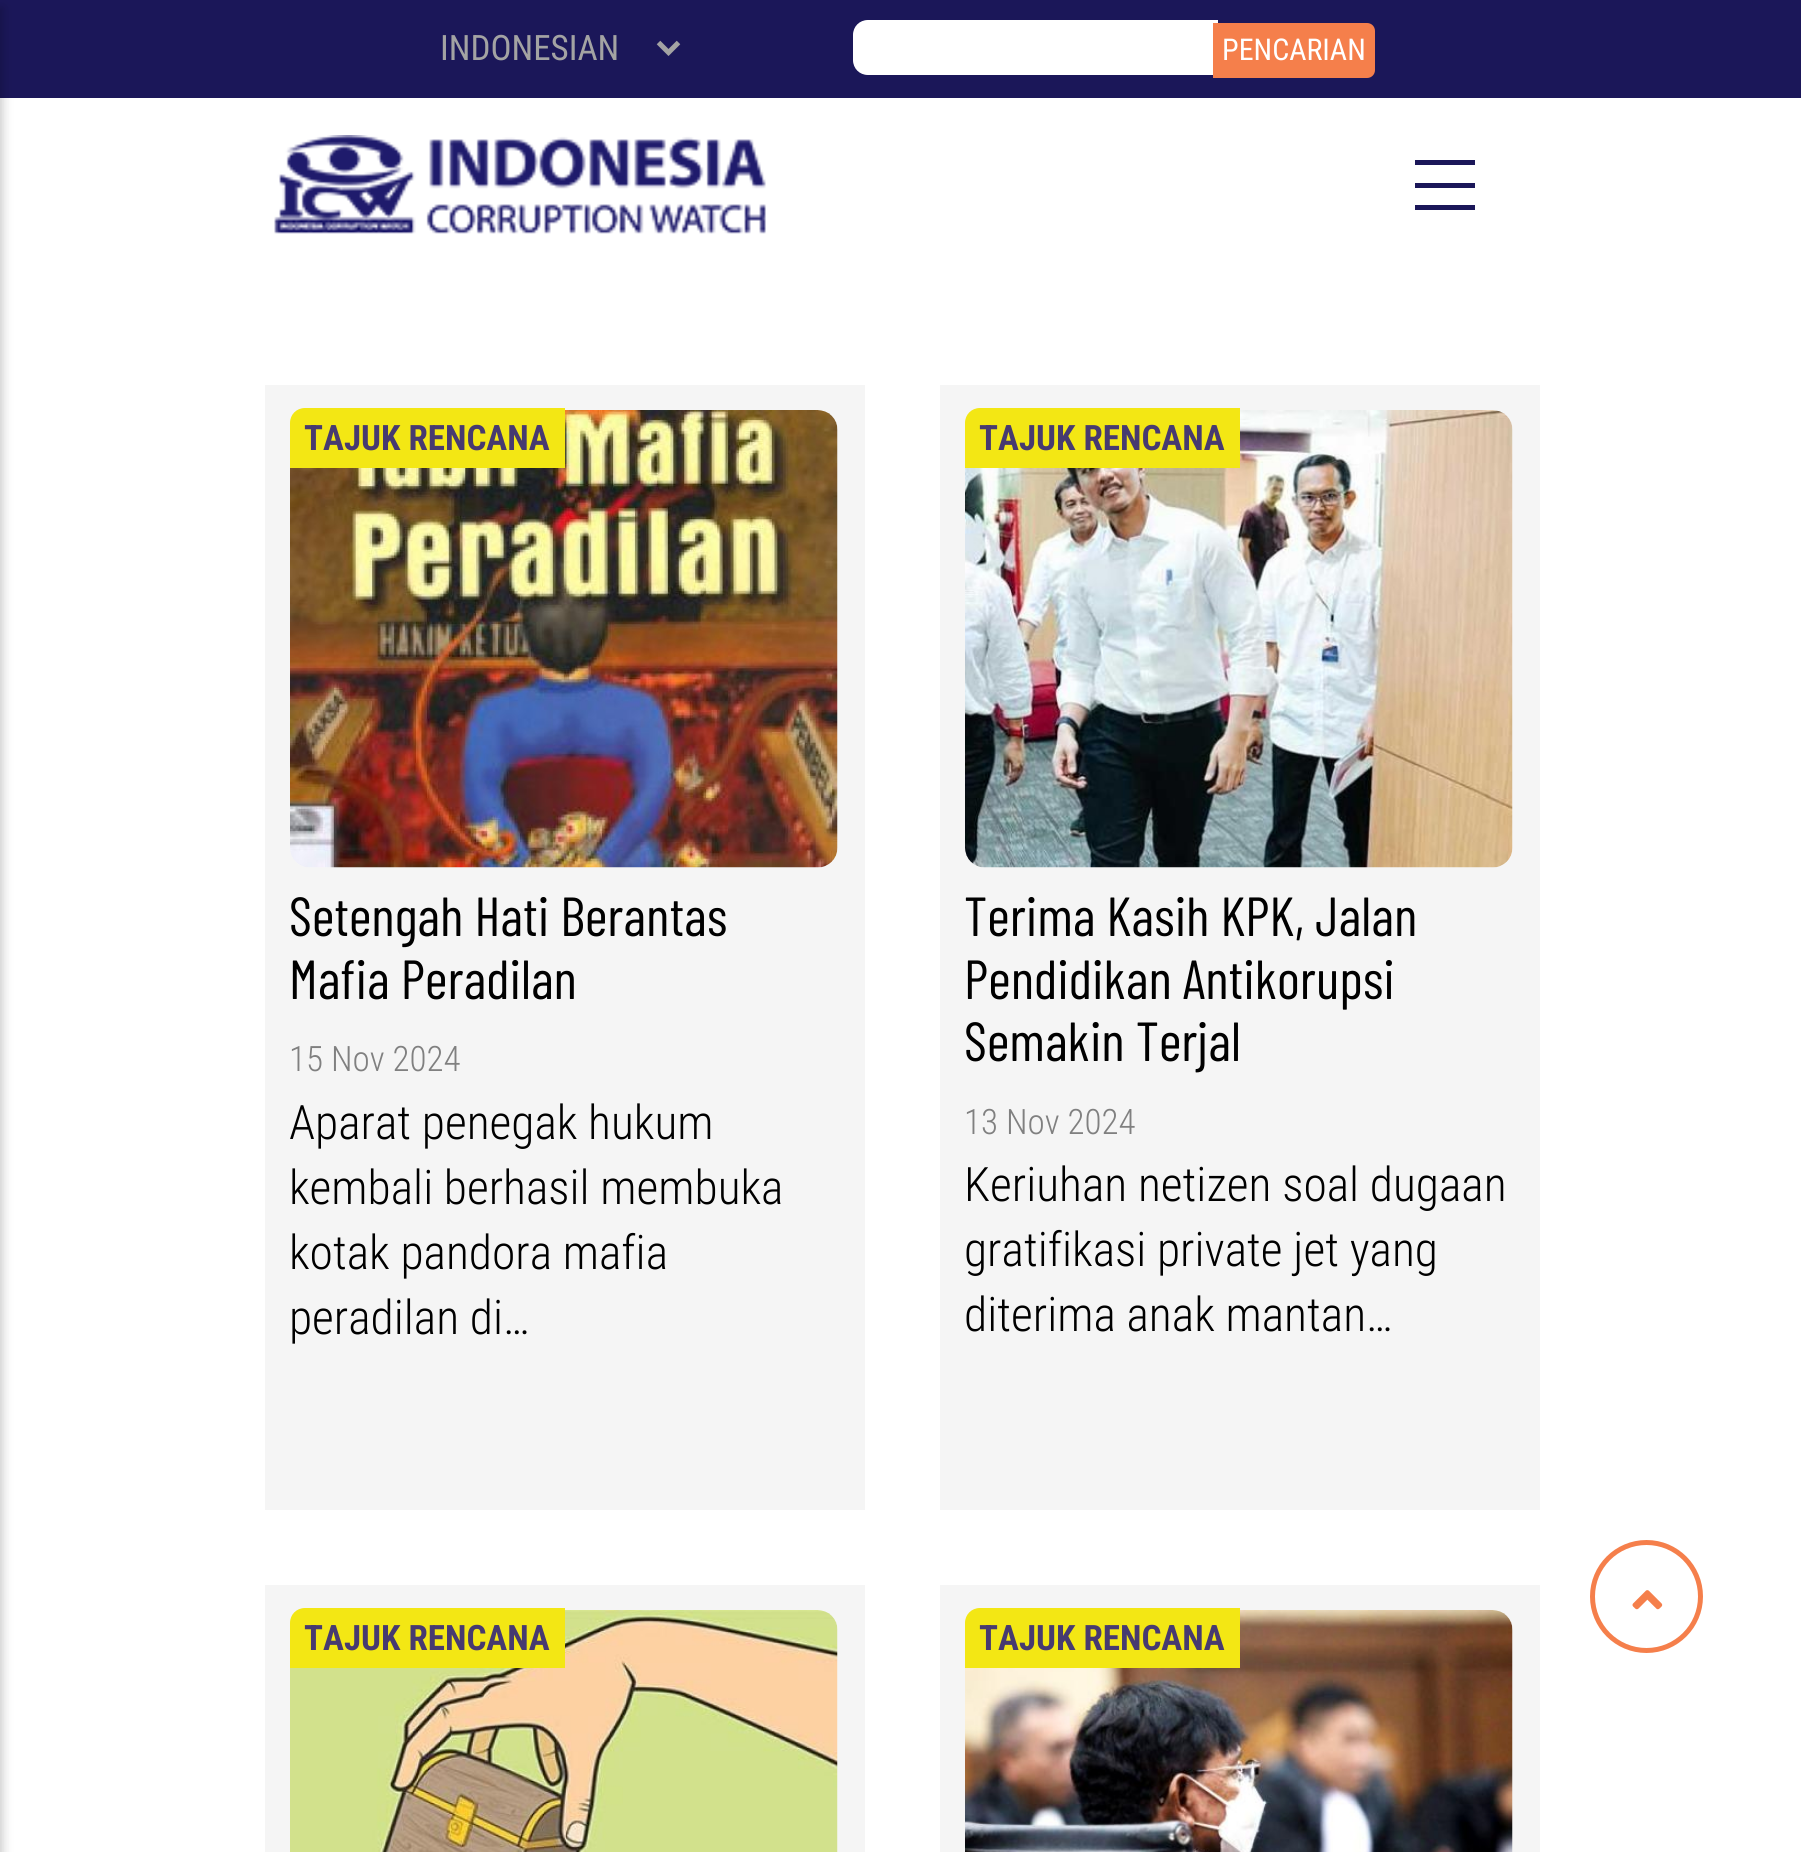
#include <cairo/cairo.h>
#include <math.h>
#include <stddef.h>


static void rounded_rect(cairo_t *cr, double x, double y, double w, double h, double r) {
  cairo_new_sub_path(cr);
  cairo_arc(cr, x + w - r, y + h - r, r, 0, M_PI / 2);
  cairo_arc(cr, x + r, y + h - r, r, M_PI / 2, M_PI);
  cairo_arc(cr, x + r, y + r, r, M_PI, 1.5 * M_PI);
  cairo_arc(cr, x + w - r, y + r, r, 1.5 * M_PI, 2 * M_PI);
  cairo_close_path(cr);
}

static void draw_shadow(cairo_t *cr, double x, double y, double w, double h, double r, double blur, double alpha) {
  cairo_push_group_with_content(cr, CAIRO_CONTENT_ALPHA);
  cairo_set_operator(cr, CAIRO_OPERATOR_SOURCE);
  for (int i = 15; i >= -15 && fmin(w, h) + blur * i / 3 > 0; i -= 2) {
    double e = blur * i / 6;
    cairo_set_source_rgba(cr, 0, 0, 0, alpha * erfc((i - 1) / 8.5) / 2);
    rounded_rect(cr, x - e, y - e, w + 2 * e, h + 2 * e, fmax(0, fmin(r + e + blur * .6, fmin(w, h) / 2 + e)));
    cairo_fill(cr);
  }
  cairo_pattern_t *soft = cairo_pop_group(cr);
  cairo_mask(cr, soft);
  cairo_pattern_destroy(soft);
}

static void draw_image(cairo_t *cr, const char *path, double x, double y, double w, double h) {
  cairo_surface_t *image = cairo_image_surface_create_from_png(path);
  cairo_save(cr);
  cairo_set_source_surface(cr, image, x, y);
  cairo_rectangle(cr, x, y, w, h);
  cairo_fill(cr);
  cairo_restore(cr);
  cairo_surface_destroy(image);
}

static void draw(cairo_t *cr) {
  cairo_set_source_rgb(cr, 1, 1, 1);
  cairo_paint(cr);
  cairo_set_source_rgb(cr, 27 / 255.0, 23 / 255.0, 89 / 255.0);
  cairo_rectangle(cr, 0, 0, 1801, 98);
  cairo_fill(cr);
  cairo_set_source_rgb(cr, 0, 0, 0);
  draw_shadow(cr, -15, 8, 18, 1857, 0, 5, 0.2);
  cairo_set_source_rgb(cr, 27 / 255.0, 23 / 255.0, 89 / 255.0);
  cairo_rectangle(cr, 1415, 160, 60, 5);
  cairo_fill(cr);
  cairo_rectangle(cr, 1415, 183, 60, 5);
  cairo_fill(cr);
  cairo_rectangle(cr, 1415, 205, 60, 5);
  cairo_fill(cr);
  draw_image(cr, "images/1.png", 274, 135, 492, 99);
  cairo_new_path(cr);
  cairo_move_to(cr, 658.5, 42.5);
  cairo_line_to(cr, 668.5, 52.5);
  cairo_line_to(cr, 678.5, 42.5);
  cairo_set_source_rgb(cr, 163 / 255.0, 163 / 255.0, 163 / 255.0);
  cairo_set_line_width(cr, 5);
  cairo_stroke(cr);
  cairo_set_source_rgb(cr, 1, 1, 1);
  cairo_new_path(cr);
  cairo_move_to(cr, 868, 20);
  cairo_line_to(cr, 1218, 20);
  cairo_line_to(cr, 1218, 75);
  cairo_line_to(cr, 868, 75);
  cairo_curve_to(cr, 859.5, 75, 853, 68.5, 853, 60);
  cairo_line_to(cr, 853, 35);
  cairo_curve_to(cr, 853, 26.5, 859.5, 20, 868, 20);
  cairo_close_path(cr);
  cairo_fill(cr);
  cairo_set_source_rgb(cr, 245 / 255.0, 127 / 255.0, 75 / 255.0);
  cairo_new_path(cr);
  cairo_move_to(cr, 1213, 23);
  cairo_line_to(cr, 1367, 23);
  cairo_curve_to(cr, 1371.5, 23, 1375, 26.5, 1375, 31);
  cairo_line_to(cr, 1375, 70);
  cairo_curve_to(cr, 1375, 74.5, 1371.5, 78, 1367, 78);
  cairo_line_to(cr, 1213, 78);
  cairo_close_path(cr);
  cairo_fill(cr);
  cairo_set_source_rgb(cr, 245 / 255.0, 245 / 255.0, 245 / 255.0);
  cairo_rectangle(cr, 265, 385, 600, 1125);
  cairo_fill(cr);
  draw_image(cr, "images/2.png", 290, 410, 548, 458);
  cairo_set_source_rgb(cr, 243 / 255.0, 231 / 255.0, 20 / 255.0);
  cairo_new_path(cr);
  cairo_move_to(cr, 305, 408);
  cairo_line_to(cr, 565, 408);
  cairo_line_to(cr, 565, 468);
  cairo_line_to(cr, 290, 468);
  cairo_line_to(cr, 290, 423);
  cairo_curve_to(cr, 290, 414.5, 296.5, 408, 305, 408);
  cairo_close_path(cr);
  cairo_fill(cr);
  cairo_set_source_rgb(cr, 245 / 255.0, 245 / 255.0, 245 / 255.0);
  cairo_rectangle(cr, 940, 385, 600, 1125);
  cairo_fill(cr);
  draw_image(cr, "images/3.png", 965, 410, 548, 458);
  cairo_set_source_rgb(cr, 243 / 255.0, 231 / 255.0, 20 / 255.0);
  cairo_new_path(cr);
  cairo_move_to(cr, 980, 408);
  cairo_line_to(cr, 1240, 408);
  cairo_line_to(cr, 1240, 468);
  cairo_line_to(cr, 965, 468);
  cairo_line_to(cr, 965, 423);
  cairo_curve_to(cr, 965, 414.5, 971.5, 408, 980, 408);
  cairo_close_path(cr);
  cairo_fill(cr);
  cairo_set_source_rgb(cr, 245 / 255.0, 245 / 255.0, 245 / 255.0);
  cairo_rectangle(cr, 265, 1585, 600, 267);
  cairo_fill(cr);
  draw_image(cr, "images/4.png", 290, 1610, 548, 242);
  cairo_set_source_rgb(cr, 243 / 255.0, 231 / 255.0, 20 / 255.0);
  cairo_new_path(cr);
  cairo_move_to(cr, 305, 1608);
  cairo_line_to(cr, 565, 1608);
  cairo_line_to(cr, 565, 1668);
  cairo_line_to(cr, 290, 1668);
  cairo_line_to(cr, 290, 1623);
  cairo_curve_to(cr, 290, 1614.5, 296.5, 1608, 305, 1608);
  cairo_close_path(cr);
  cairo_fill(cr);
  cairo_set_source_rgb(cr, 245 / 255.0, 245 / 255.0, 245 / 255.0);
  cairo_rectangle(cr, 940, 1585, 600, 267);
  cairo_fill(cr);
  draw_image(cr, "images/5.png", 965, 1610, 548, 242);
  cairo_set_source_rgb(cr, 243 / 255.0, 231 / 255.0, 20 / 255.0);
  cairo_new_path(cr);
  cairo_move_to(cr, 980, 1608);
  cairo_line_to(cr, 1240, 1608);
  cairo_line_to(cr, 1240, 1668);
  cairo_line_to(cr, 965, 1668);
  cairo_line_to(cr, 965, 1623);
  cairo_curve_to(cr, 965, 1614.5, 971.5, 1608, 980, 1608);
  cairo_close_path(cr);
  cairo_fill(cr);
  cairo_arc(cr, 1646.5, 1596.5, 54, 0, 2 * M_PI);
  cairo_set_source_rgb(cr, 245 / 255.0, 127 / 255.0, 75 / 255.0);
  cairo_stroke(cr);
  draw_image(cr, "images/6.png", 1632, 1590, 31, 20);
  cairo_select_font_face(cr, "Roboto Condensed", CAIRO_FONT_SLANT_NORMAL, CAIRO_FONT_WEIGHT_NORMAL);
  cairo_set_font_size(cr, 35);
  cairo_set_source_rgb(cr, 163 / 255.0, 163 / 255.0, 163 / 255.0);
  cairo_move_to(cr, 440, 60);
  cairo_show_text(cr, "INDONESIAN");
  cairo_set_font_size(cr, 30);
  cairo_set_source_rgb(cr, 1, 1, 1);
  cairo_move_to(cr, 1222, 60);
  cairo_show_text(cr, "PENCARIAN");
  cairo_select_font_face(cr, "Roboto Condensed", CAIRO_FONT_SLANT_NORMAL, CAIRO_FONT_WEIGHT_BOLD);
  cairo_set_font_size(cr, 35);
  cairo_set_source_rgb(cr, 71 / 255.0, 58 / 255.0, 112 / 255.0);
  cairo_move_to(cr, 304, 450);
  cairo_show_text(cr, "TAJUK RENCANA");
  cairo_select_font_face(cr, "Barlow Condensed", CAIRO_FONT_SLANT_NORMAL, CAIRO_FONT_WEIGHT_NORMAL);
  cairo_set_font_size(cr, 55);
  cairo_set_source_rgb(cr, 0, 0, 0);
  cairo_move_to(cr, 289, 936);
  cairo_show_text(cr, "Setengah Hati Berantas");
  cairo_move_to(cr, 289, 999);
  cairo_show_text(cr, "Mafia Peradilan");
  cairo_select_font_face(cr, "Roboto Condensed Light", CAIRO_FONT_SLANT_NORMAL, CAIRO_FONT_WEIGHT_NORMAL);
  cairo_set_font_size(cr, 35);
  cairo_set_source_rgb(cr, 128 / 255.0, 128 / 255.0, 128 / 255.0);
  cairo_move_to(cr, 289, 1071);
  cairo_show_text(cr, "15 Nov 2024");
  cairo_set_font_size(cr, 47.5);
  cairo_set_source_rgb(cr, 0, 0, 0);
  cairo_move_to(cr, 289, 1139);
  cairo_show_text(cr, "Aparat penegak hukum");
  cairo_move_to(cr, 289, 1204);
  cairo_show_text(cr, "kembali berhasil membuka");
  cairo_move_to(cr, 289, 1269);
  cairo_show_text(cr, "kotak pandora mafia");
  cairo_move_to(cr, 289, 1334);
  cairo_show_text(cr, "peradilan di…");
  cairo_select_font_face(cr, "Roboto Condensed", CAIRO_FONT_SLANT_NORMAL, CAIRO_FONT_WEIGHT_BOLD);
  cairo_set_font_size(cr, 35);
  cairo_set_source_rgb(cr, 71 / 255.0, 58 / 255.0, 112 / 255.0);
  cairo_move_to(cr, 979, 450);
  cairo_show_text(cr, "TAJUK RENCANA");
  cairo_select_font_face(cr, "Barlow Condensed", CAIRO_FONT_SLANT_NORMAL, CAIRO_FONT_WEIGHT_NORMAL);
  cairo_set_font_size(cr, 55);
  cairo_set_source_rgb(cr, 0, 0, 0);
  cairo_move_to(cr, 964, 936);
  cairo_show_text(cr, "Terima Kasih KPK, Jalan");
  cairo_move_to(cr, 964, 999);
  cairo_show_text(cr, "Pendidikan Antikorupsi");
  cairo_move_to(cr, 964, 1061);
  cairo_show_text(cr, "Semakin Terjal");
  cairo_select_font_face(cr, "Roboto Condensed Light", CAIRO_FONT_SLANT_NORMAL, CAIRO_FONT_WEIGHT_NORMAL);
  cairo_set_font_size(cr, 35);
  cairo_set_source_rgb(cr, 128 / 255.0, 128 / 255.0, 128 / 255.0);
  cairo_move_to(cr, 964, 1134);
  cairo_show_text(cr, "13 Nov 2024");
  cairo_set_font_size(cr, 47.5);
  cairo_set_source_rgb(cr, 0, 0, 0);
  cairo_move_to(cr, 964, 1201);
  cairo_show_text(cr, "Keriuhan netizen soal dugaan");
  cairo_move_to(cr, 964, 1266);
  cairo_show_text(cr, "gratifikasi private jet yang");
  cairo_move_to(cr, 964, 1331);
  cairo_show_text(cr, "diterima anak mantan…");
  cairo_select_font_face(cr, "Roboto Condensed", CAIRO_FONT_SLANT_NORMAL, CAIRO_FONT_WEIGHT_BOLD);
  cairo_set_font_size(cr, 35);
  cairo_set_source_rgb(cr, 71 / 255.0, 58 / 255.0, 112 / 255.0);
  cairo_move_to(cr, 304, 1650);
  cairo_show_text(cr, "TAJUK RENCANA");
  cairo_move_to(cr, 979, 1650);
  cairo_show_text(cr, "TAJUK RENCANA");
}

int main(void) {
  cairo_surface_t *surface = cairo_image_surface_create(CAIRO_FORMAT_RGB24, 1801, 1852);
  cairo_t *cr = cairo_create(surface);
  cairo_font_options_t *options = cairo_font_options_create();
  cairo_font_options_set_hint_metrics(options, CAIRO_HINT_METRICS_OFF);
  cairo_font_options_set_hint_style(options, CAIRO_HINT_STYLE_NONE);
  cairo_set_font_options(cr, options);
  cairo_set_miter_limit(cr, 4);
  draw(cr);
  cairo_surface_write_to_png(surface, "out.png");
  cairo_font_options_destroy(options);
  cairo_destroy(cr);
  cairo_surface_destroy(surface);
  return 0;
}
